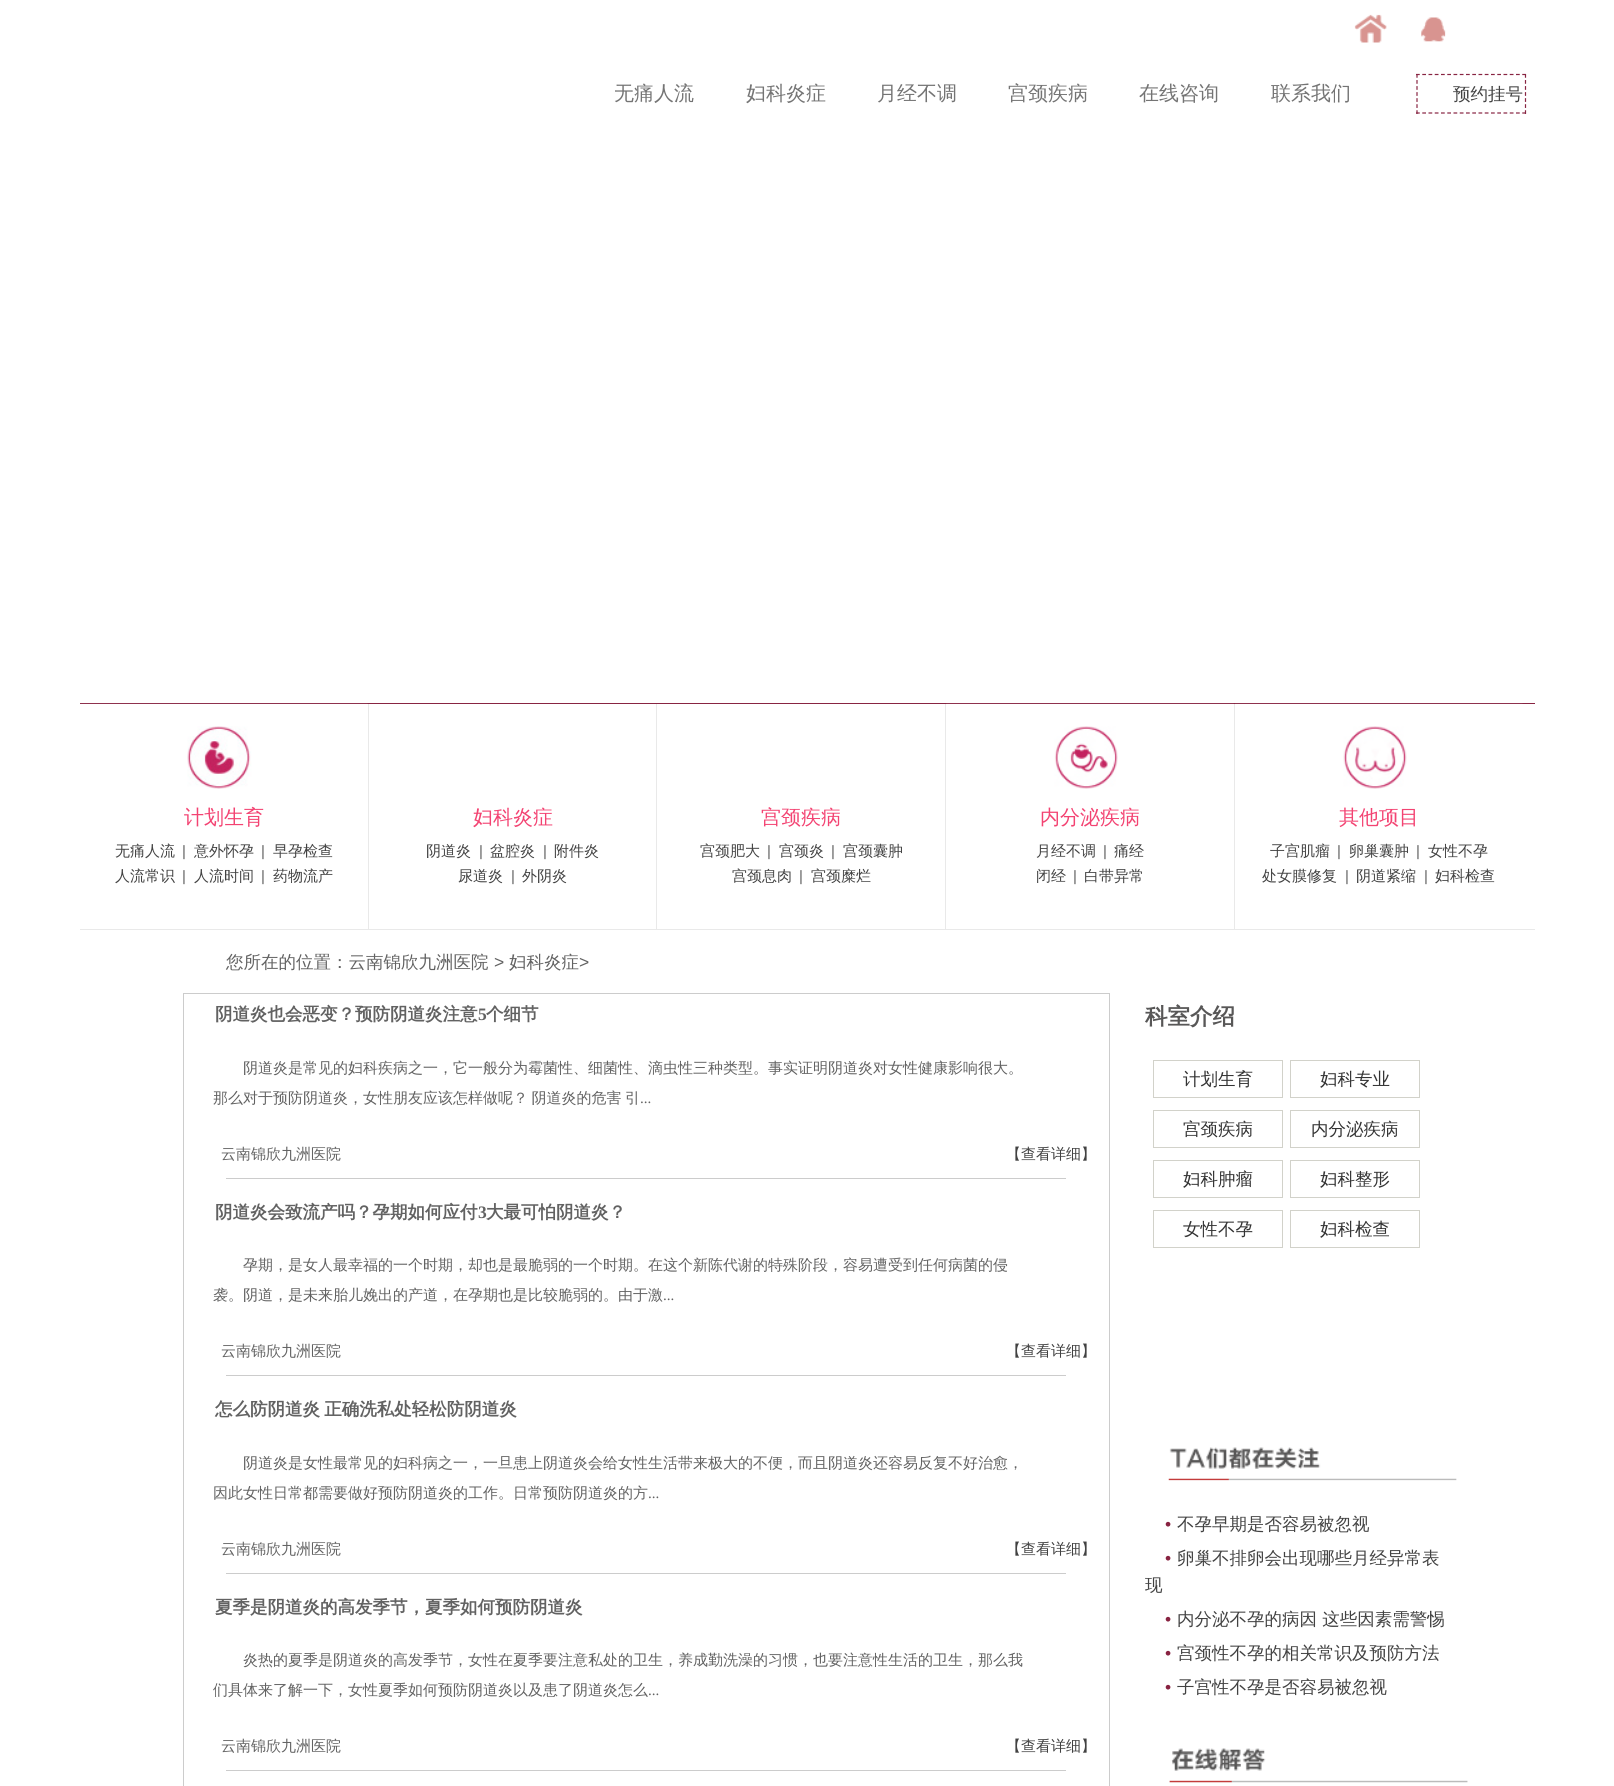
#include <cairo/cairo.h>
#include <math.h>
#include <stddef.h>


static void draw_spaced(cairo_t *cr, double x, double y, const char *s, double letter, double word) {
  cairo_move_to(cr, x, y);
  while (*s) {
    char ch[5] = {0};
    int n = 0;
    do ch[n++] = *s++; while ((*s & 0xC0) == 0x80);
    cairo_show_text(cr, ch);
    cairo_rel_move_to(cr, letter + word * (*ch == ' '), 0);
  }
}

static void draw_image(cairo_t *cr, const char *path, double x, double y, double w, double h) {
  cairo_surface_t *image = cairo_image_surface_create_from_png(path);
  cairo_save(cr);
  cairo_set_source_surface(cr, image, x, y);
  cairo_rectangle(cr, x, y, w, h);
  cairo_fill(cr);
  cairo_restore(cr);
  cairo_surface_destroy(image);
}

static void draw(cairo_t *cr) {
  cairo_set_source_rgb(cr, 1, 1, 1);
  cairo_paint(cr);
  draw_image(cr, "images/1.png", 1354, 14, 33, 29);
  draw_image(cr, "images/2.png", 1421, 17, 25, 25);
  cairo_new_path(cr);
  cairo_move_to(cr, 1416, 74.5);
  cairo_line_to(cr, 1526, 74.5);
  cairo_set_source_rgb(cr, 136 / 255.0, 36 / 255.0, 66 / 255.0);
  cairo_set_line_width(cr, 1.2);
  cairo_set_dash(cr, (double[]){3.75, 2.5}, 2, 0);
  cairo_stroke(cr);
  cairo_new_path(cr);
  cairo_move_to(cr, 1525.5, 74);
  cairo_line_to(cr, 1525.5, 114);
  cairo_set_dash(cr, (double[]){3.75, 2.29}, 2, 0);
  cairo_stroke(cr);
  cairo_new_path(cr);
  cairo_move_to(cr, 1416, 113);
  cairo_line_to(cr, 1526, 113);
  cairo_set_dash(cr, (double[]){3.75, 2.5}, 2, 0);
  cairo_stroke(cr);
  cairo_new_path(cr);
  cairo_move_to(cr, 1417, 74);
  cairo_line_to(cr, 1417, 114);
  cairo_set_dash(cr, (double[]){3.75, 2.29}, 2, 0);
  cairo_stroke(cr);
  cairo_rectangle(cr, 80, 703, 1455, 1);
  cairo_fill(cr);
  cairo_set_source_rgb(cr, 233 / 255.0, 233 / 255.0, 233 / 255.0);
  cairo_rectangle(cr, 80, 929, 1455, 1);
  cairo_fill(cr);
  draw_image(cr, "images/3.png", 80, 703, 288, 86);
  cairo_rectangle(cr, 368, 704, 1, 225);
  cairo_fill(cr);
  cairo_rectangle(cr, 656, 704, 1, 225);
  cairo_fill(cr);
  cairo_rectangle(cr, 945, 704, 1, 225);
  cairo_fill(cr);
  draw_image(cr, "images/4.png", 946, 703, 288, 86);
  cairo_rectangle(cr, 1234, 704, 1, 225);
  cairo_fill(cr);
  draw_image(cr, "images/5.png", 1235, 703, 288, 86);
  cairo_rectangle(cr, 183.5, 993.5, 926, 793);
  cairo_set_source_rgb(cr, 204 / 255.0, 204 / 255.0, 204 / 255.0);
  cairo_set_line_width(cr, 1);
  cairo_set_dash(cr, NULL, 0, 0);
  cairo_stroke(cr);
  cairo_rectangle(cr, 226, 1178, 840, 1);
  cairo_fill(cr);
  cairo_rectangle(cr, 226, 1375, 840, 1);
  cairo_fill(cr);
  cairo_rectangle(cr, 226, 1573, 840, 1);
  cairo_fill(cr);
  cairo_rectangle(cr, 226, 1770, 840, 1);
  cairo_fill(cr);
  cairo_rectangle(cr, 1153.5, 1060.5, 129, 37);
  cairo_set_source_rgb(cr, 210 / 255.0, 210 / 255.0, 202 / 255.0);
  cairo_stroke(cr);
  cairo_rectangle(cr, 1290.5, 1060.5, 129, 37);
  cairo_stroke(cr);
  cairo_rectangle(cr, 1153.5, 1110.5, 129, 37);
  cairo_stroke(cr);
  cairo_rectangle(cr, 1290.5, 1110.5, 129, 37);
  cairo_stroke(cr);
  cairo_rectangle(cr, 1153.5, 1160.5, 129, 37);
  cairo_stroke(cr);
  cairo_rectangle(cr, 1290.5, 1160.5, 129, 37);
  cairo_stroke(cr);
  cairo_rectangle(cr, 1153.5, 1210.5, 129, 37);
  cairo_stroke(cr);
  cairo_rectangle(cr, 1290.5, 1210.5, 129, 37);
  cairo_stroke(cr);
  draw_image(cr, "images/6.png", 1168, 1447, 289, 34);
  draw_image(cr, "images/7.png", 1169, 1748, 299, 35);
  cairo_select_font_face(cr, "WenQuanYi Zen Hei Medium", CAIRO_FONT_SLANT_NORMAL, CAIRO_FONT_WEIGHT_NORMAL);
  cairo_set_font_size(cr, 20);
  cairo_set_source_rgb(cr, 116 / 255.0, 116 / 255.0, 116 / 255.0);
  cairo_move_to(cr, 614, 100);
  cairo_show_text(cr, "无痛人流");
  cairo_move_to(cr, 746, 100);
  cairo_show_text(cr, "妇科炎症");
  cairo_move_to(cr, 877, 100);
  cairo_show_text(cr, "月经不调");
  cairo_move_to(cr, 1008, 100);
  cairo_show_text(cr, "宫颈疾病");
  cairo_move_to(cr, 1139, 100);
  cairo_show_text(cr, "在线咨询");
  cairo_move_to(cr, 1271, 100);
  cairo_show_text(cr, "联系我们");
  cairo_set_font_size(cr, 17.5);
  cairo_set_source_rgb(cr, 66 / 255.0, 66 / 255.0, 66 / 255.0);
  cairo_move_to(cr, 1453, 100);
  cairo_show_text(cr, "预约挂号");
  cairo_set_font_size(cr, 20);
  cairo_set_source_rgb(cr, 243 / 255.0, 67 / 255.0, 114 / 255.0);
  cairo_move_to(cr, 184, 824);
  cairo_show_text(cr, "计划生育");
  cairo_set_font_size(cr, 15);
  cairo_set_source_rgb(cr, 66 / 255.0, 66 / 255.0, 66 / 255.0);
  cairo_move_to(cr, 115, 856);
  cairo_show_text(cr, "无痛人流");
  cairo_select_font_face(cr, "Liberation Sans", CAIRO_FONT_SLANT_NORMAL, CAIRO_FONT_WEIGHT_NORMAL);
  cairo_set_source_rgb(cr, 98 / 255.0, 98 / 255.0, 98 / 255.0);
  cairo_move_to(cr, 182, 856);
  cairo_show_text(cr, "|");
  cairo_select_font_face(cr, "WenQuanYi Zen Hei Medium", CAIRO_FONT_SLANT_NORMAL, CAIRO_FONT_WEIGHT_NORMAL);
  cairo_set_source_rgb(cr, 66 / 255.0, 66 / 255.0, 66 / 255.0);
  cairo_move_to(cr, 194, 856);
  cairo_show_text(cr, "意外怀孕");
  cairo_select_font_face(cr, "Liberation Sans", CAIRO_FONT_SLANT_NORMAL, CAIRO_FONT_WEIGHT_NORMAL);
  cairo_set_source_rgb(cr, 98 / 255.0, 98 / 255.0, 98 / 255.0);
  cairo_move_to(cr, 261, 856);
  cairo_show_text(cr, "|");
  cairo_select_font_face(cr, "WenQuanYi Zen Hei Medium", CAIRO_FONT_SLANT_NORMAL, CAIRO_FONT_WEIGHT_NORMAL);
  cairo_set_source_rgb(cr, 66 / 255.0, 66 / 255.0, 66 / 255.0);
  cairo_move_to(cr, 273, 856);
  cairo_show_text(cr, "早孕检查");
  cairo_move_to(cr, 115, 881);
  cairo_show_text(cr, "人流常识");
  cairo_select_font_face(cr, "Liberation Sans", CAIRO_FONT_SLANT_NORMAL, CAIRO_FONT_WEIGHT_NORMAL);
  cairo_set_source_rgb(cr, 98 / 255.0, 98 / 255.0, 98 / 255.0);
  cairo_move_to(cr, 182, 881);
  cairo_show_text(cr, "|");
  cairo_select_font_face(cr, "WenQuanYi Zen Hei Medium", CAIRO_FONT_SLANT_NORMAL, CAIRO_FONT_WEIGHT_NORMAL);
  cairo_set_source_rgb(cr, 66 / 255.0, 66 / 255.0, 66 / 255.0);
  cairo_move_to(cr, 194, 881);
  cairo_show_text(cr, "人流时间");
  cairo_select_font_face(cr, "Liberation Sans", CAIRO_FONT_SLANT_NORMAL, CAIRO_FONT_WEIGHT_NORMAL);
  cairo_set_source_rgb(cr, 98 / 255.0, 98 / 255.0, 98 / 255.0);
  cairo_move_to(cr, 261, 881);
  cairo_show_text(cr, "|");
  cairo_select_font_face(cr, "WenQuanYi Zen Hei Medium", CAIRO_FONT_SLANT_NORMAL, CAIRO_FONT_WEIGHT_NORMAL);
  cairo_set_source_rgb(cr, 66 / 255.0, 66 / 255.0, 66 / 255.0);
  cairo_move_to(cr, 273, 881);
  cairo_show_text(cr, "药物流产");
  cairo_set_font_size(cr, 20);
  cairo_set_source_rgb(cr, 243 / 255.0, 67 / 255.0, 114 / 255.0);
  cairo_move_to(cr, 473, 824);
  cairo_show_text(cr, "妇科炎症");
  cairo_set_font_size(cr, 15);
  cairo_set_source_rgb(cr, 66 / 255.0, 66 / 255.0, 66 / 255.0);
  cairo_move_to(cr, 426, 856);
  cairo_show_text(cr, "阴道炎");
  cairo_select_font_face(cr, "Liberation Sans", CAIRO_FONT_SLANT_NORMAL, CAIRO_FONT_WEIGHT_NORMAL);
  cairo_set_source_rgb(cr, 98 / 255.0, 98 / 255.0, 98 / 255.0);
  cairo_move_to(cr, 479, 856);
  cairo_show_text(cr, "|");
  cairo_select_font_face(cr, "WenQuanYi Zen Hei Medium", CAIRO_FONT_SLANT_NORMAL, CAIRO_FONT_WEIGHT_NORMAL);
  cairo_set_source_rgb(cr, 66 / 255.0, 66 / 255.0, 66 / 255.0);
  cairo_move_to(cr, 490, 856);
  cairo_show_text(cr, "盆腔炎");
  cairo_select_font_face(cr, "Liberation Sans", CAIRO_FONT_SLANT_NORMAL, CAIRO_FONT_WEIGHT_NORMAL);
  cairo_set_source_rgb(cr, 98 / 255.0, 98 / 255.0, 98 / 255.0);
  cairo_move_to(cr, 543, 856);
  cairo_show_text(cr, "|");
  cairo_select_font_face(cr, "WenQuanYi Zen Hei Medium", CAIRO_FONT_SLANT_NORMAL, CAIRO_FONT_WEIGHT_NORMAL);
  cairo_set_source_rgb(cr, 66 / 255.0, 66 / 255.0, 66 / 255.0);
  cairo_move_to(cr, 554, 856);
  cairo_show_text(cr, "附件炎");
  cairo_move_to(cr, 458, 881);
  cairo_show_text(cr, "尿道炎");
  cairo_select_font_face(cr, "Liberation Sans", CAIRO_FONT_SLANT_NORMAL, CAIRO_FONT_WEIGHT_NORMAL);
  cairo_set_source_rgb(cr, 98 / 255.0, 98 / 255.0, 98 / 255.0);
  cairo_move_to(cr, 511, 881);
  cairo_show_text(cr, "|");
  cairo_select_font_face(cr, "WenQuanYi Zen Hei Medium", CAIRO_FONT_SLANT_NORMAL, CAIRO_FONT_WEIGHT_NORMAL);
  cairo_set_source_rgb(cr, 66 / 255.0, 66 / 255.0, 66 / 255.0);
  cairo_move_to(cr, 522, 881);
  cairo_show_text(cr, "外阴炎");
  cairo_set_font_size(cr, 20);
  cairo_set_source_rgb(cr, 243 / 255.0, 67 / 255.0, 114 / 255.0);
  cairo_move_to(cr, 761, 824);
  cairo_show_text(cr, "宫颈疾病");
  cairo_set_font_size(cr, 15);
  cairo_set_source_rgb(cr, 66 / 255.0, 66 / 255.0, 66 / 255.0);
  cairo_move_to(cr, 700, 856);
  cairo_show_text(cr, "宫颈肥大");
  cairo_select_font_face(cr, "Liberation Sans", CAIRO_FONT_SLANT_NORMAL, CAIRO_FONT_WEIGHT_NORMAL);
  cairo_set_source_rgb(cr, 98 / 255.0, 98 / 255.0, 98 / 255.0);
  cairo_move_to(cr, 767, 856);
  cairo_show_text(cr, "|");
  cairo_select_font_face(cr, "WenQuanYi Zen Hei Medium", CAIRO_FONT_SLANT_NORMAL, CAIRO_FONT_WEIGHT_NORMAL);
  cairo_set_source_rgb(cr, 66 / 255.0, 66 / 255.0, 66 / 255.0);
  cairo_move_to(cr, 779, 856);
  cairo_show_text(cr, "宫颈炎");
  cairo_select_font_face(cr, "Liberation Sans", CAIRO_FONT_SLANT_NORMAL, CAIRO_FONT_WEIGHT_NORMAL);
  cairo_set_source_rgb(cr, 98 / 255.0, 98 / 255.0, 98 / 255.0);
  cairo_move_to(cr, 831, 856);
  cairo_show_text(cr, "|");
  cairo_select_font_face(cr, "WenQuanYi Zen Hei Medium", CAIRO_FONT_SLANT_NORMAL, CAIRO_FONT_WEIGHT_NORMAL);
  cairo_set_source_rgb(cr, 66 / 255.0, 66 / 255.0, 66 / 255.0);
  cairo_move_to(cr, 843, 856);
  cairo_show_text(cr, "宫颈囊肿");
  cairo_move_to(cr, 732, 881);
  cairo_show_text(cr, "宫颈息肉");
  cairo_select_font_face(cr, "Liberation Sans", CAIRO_FONT_SLANT_NORMAL, CAIRO_FONT_WEIGHT_NORMAL);
  cairo_set_source_rgb(cr, 98 / 255.0, 98 / 255.0, 98 / 255.0);
  cairo_move_to(cr, 799, 881);
  cairo_show_text(cr, "|");
  cairo_select_font_face(cr, "WenQuanYi Zen Hei Medium", CAIRO_FONT_SLANT_NORMAL, CAIRO_FONT_WEIGHT_NORMAL);
  cairo_set_source_rgb(cr, 66 / 255.0, 66 / 255.0, 66 / 255.0);
  cairo_move_to(cr, 811, 881);
  cairo_show_text(cr, "宫颈糜烂");
  cairo_set_font_size(cr, 20);
  cairo_set_source_rgb(cr, 243 / 255.0, 67 / 255.0, 114 / 255.0);
  cairo_move_to(cr, 1040, 824);
  cairo_show_text(cr, "内分泌疾病");
  cairo_set_font_size(cr, 15);
  cairo_set_source_rgb(cr, 66 / 255.0, 66 / 255.0, 66 / 255.0);
  cairo_move_to(cr, 1036, 856);
  cairo_show_text(cr, "月经不调");
  cairo_select_font_face(cr, "Liberation Sans", CAIRO_FONT_SLANT_NORMAL, CAIRO_FONT_WEIGHT_NORMAL);
  cairo_set_source_rgb(cr, 98 / 255.0, 98 / 255.0, 98 / 255.0);
  cairo_move_to(cr, 1103, 856);
  cairo_show_text(cr, "|");
  cairo_select_font_face(cr, "WenQuanYi Zen Hei Medium", CAIRO_FONT_SLANT_NORMAL, CAIRO_FONT_WEIGHT_NORMAL);
  cairo_set_source_rgb(cr, 66 / 255.0, 66 / 255.0, 66 / 255.0);
  cairo_move_to(cr, 1114, 856);
  cairo_show_text(cr, "痛经");
  cairo_move_to(cr, 1036, 881);
  cairo_show_text(cr, "闭经");
  cairo_select_font_face(cr, "Liberation Sans", CAIRO_FONT_SLANT_NORMAL, CAIRO_FONT_WEIGHT_NORMAL);
  cairo_set_source_rgb(cr, 98 / 255.0, 98 / 255.0, 98 / 255.0);
  cairo_move_to(cr, 1073, 881);
  cairo_show_text(cr, "|");
  cairo_select_font_face(cr, "WenQuanYi Zen Hei Medium", CAIRO_FONT_SLANT_NORMAL, CAIRO_FONT_WEIGHT_NORMAL);
  cairo_set_source_rgb(cr, 66 / 255.0, 66 / 255.0, 66 / 255.0);
  cairo_move_to(cr, 1084, 881);
  cairo_show_text(cr, "白带异常");
  cairo_set_font_size(cr, 20);
  cairo_set_source_rgb(cr, 243 / 255.0, 67 / 255.0, 114 / 255.0);
  cairo_move_to(cr, 1339, 824);
  cairo_show_text(cr, "其他项目");
  cairo_set_font_size(cr, 15);
  cairo_set_source_rgb(cr, 66 / 255.0, 66 / 255.0, 66 / 255.0);
  cairo_move_to(cr, 1270, 856);
  cairo_show_text(cr, "子宫肌瘤");
  cairo_select_font_face(cr, "Liberation Sans", CAIRO_FONT_SLANT_NORMAL, CAIRO_FONT_WEIGHT_NORMAL);
  cairo_set_source_rgb(cr, 98 / 255.0, 98 / 255.0, 98 / 255.0);
  cairo_move_to(cr, 1337, 856);
  cairo_show_text(cr, "|");
  cairo_select_font_face(cr, "WenQuanYi Zen Hei Medium", CAIRO_FONT_SLANT_NORMAL, CAIRO_FONT_WEIGHT_NORMAL);
  cairo_set_source_rgb(cr, 66 / 255.0, 66 / 255.0, 66 / 255.0);
  cairo_move_to(cr, 1349, 856);
  cairo_show_text(cr, "卵巢囊肿");
  cairo_select_font_face(cr, "Liberation Sans", CAIRO_FONT_SLANT_NORMAL, CAIRO_FONT_WEIGHT_NORMAL);
  cairo_set_source_rgb(cr, 98 / 255.0, 98 / 255.0, 98 / 255.0);
  cairo_move_to(cr, 1416, 856);
  cairo_show_text(cr, "|");
  cairo_select_font_face(cr, "WenQuanYi Zen Hei Medium", CAIRO_FONT_SLANT_NORMAL, CAIRO_FONT_WEIGHT_NORMAL);
  cairo_set_source_rgb(cr, 66 / 255.0, 66 / 255.0, 66 / 255.0);
  cairo_move_to(cr, 1428, 856);
  cairo_show_text(cr, "女性不孕");
  cairo_move_to(cr, 1262, 881);
  cairo_show_text(cr, "处女膜修复");
  cairo_select_font_face(cr, "Liberation Sans", CAIRO_FONT_SLANT_NORMAL, CAIRO_FONT_WEIGHT_NORMAL);
  cairo_set_source_rgb(cr, 98 / 255.0, 98 / 255.0, 98 / 255.0);
  cairo_move_to(cr, 1345, 881);
  cairo_show_text(cr, "|");
  cairo_select_font_face(cr, "WenQuanYi Zen Hei Medium", CAIRO_FONT_SLANT_NORMAL, CAIRO_FONT_WEIGHT_NORMAL);
  cairo_set_source_rgb(cr, 66 / 255.0, 66 / 255.0, 66 / 255.0);
  cairo_move_to(cr, 1356, 881);
  cairo_show_text(cr, "阴道紧缩");
  cairo_select_font_face(cr, "Liberation Sans", CAIRO_FONT_SLANT_NORMAL, CAIRO_FONT_WEIGHT_NORMAL);
  cairo_set_source_rgb(cr, 98 / 255.0, 98 / 255.0, 98 / 255.0);
  cairo_move_to(cr, 1424, 881);
  cairo_show_text(cr, "|");
  cairo_select_font_face(cr, "WenQuanYi Zen Hei Medium", CAIRO_FONT_SLANT_NORMAL, CAIRO_FONT_WEIGHT_NORMAL);
  cairo_set_source_rgb(cr, 66 / 255.0, 66 / 255.0, 66 / 255.0);
  cairo_move_to(cr, 1435, 881);
  cairo_show_text(cr, "妇科检查");
  cairo_set_font_size(cr, 17.5);
  cairo_set_source_rgb(cr, 98 / 255.0, 98 / 255.0, 98 / 255.0);
  cairo_move_to(cr, 226, 968);
  cairo_show_text(cr, "您所在的位置：云南锦欣九洲医院");
  cairo_select_font_face(cr, "Liberation Sans", CAIRO_FONT_SLANT_NORMAL, CAIRO_FONT_WEIGHT_NORMAL);
  cairo_move_to(cr, 494, 968);
  cairo_show_text(cr, ">");
  cairo_select_font_face(cr, "WenQuanYi Zen Hei Medium", CAIRO_FONT_SLANT_NORMAL, CAIRO_FONT_WEIGHT_NORMAL);
  cairo_move_to(cr, 509, 968);
  cairo_show_text(cr, "妇科炎症");
  cairo_select_font_face(cr, "Liberation Sans", CAIRO_FONT_SLANT_NORMAL, CAIRO_FONT_WEIGHT_NORMAL);
  cairo_move_to(cr, 579, 968);
  cairo_show_text(cr, ">");
  cairo_select_font_face(cr, "WenQuanYi Zen Hei", CAIRO_FONT_SLANT_NORMAL, CAIRO_FONT_WEIGHT_BOLD);
  cairo_move_to(cr, 215, 1020);
  cairo_show_text(cr, "阴道炎也会恶变？预防阴道炎注意");
  cairo_select_font_face(cr, "Liberation Serif", CAIRO_FONT_SLANT_NORMAL, CAIRO_FONT_WEIGHT_BOLD);
  cairo_move_to(cr, 478, 1020);
  cairo_show_text(cr, "5");
  cairo_select_font_face(cr, "WenQuanYi Zen Hei", CAIRO_FONT_SLANT_NORMAL, CAIRO_FONT_WEIGHT_BOLD);
  cairo_move_to(cr, 486, 1020);
  cairo_show_text(cr, "个细节");
  cairo_select_font_face(cr, "WenQuanYi Zen Hei Medium", CAIRO_FONT_SLANT_NORMAL, CAIRO_FONT_WEIGHT_NORMAL);
  cairo_set_font_size(cr, 15);
  cairo_move_to(cr, 243, 1073);
  cairo_show_text(cr, "阴道炎是常见的妇科疾病之一，它一般分为霉菌性、细菌性、滴虫性三种类型。事实证明阴道炎对女性健康影响很大。");
  draw_spaced(cr, 213, 1103, "那么对于预防阴道炎，女性朋友应该怎样做呢？ 阴道炎的危害 引", 0, -1);
  cairo_select_font_face(cr, "Liberation Serif", CAIRO_FONT_SLANT_NORMAL, CAIRO_FONT_WEIGHT_NORMAL);
  cairo_move_to(cr, 640, 1103);
  cairo_show_text(cr, "...");
  cairo_select_font_face(cr, "WenQuanYi Zen Hei Medium", CAIRO_FONT_SLANT_NORMAL, CAIRO_FONT_WEIGHT_NORMAL);
  cairo_move_to(cr, 221, 1159);
  cairo_show_text(cr, "云南锦欣九洲医院");
  cairo_set_source_rgb(cr, 66 / 255.0, 66 / 255.0, 66 / 255.0);
  cairo_move_to(cr, 1006, 1159);
  cairo_show_text(cr, "【查看详细】");
  cairo_select_font_face(cr, "WenQuanYi Zen Hei", CAIRO_FONT_SLANT_NORMAL, CAIRO_FONT_WEIGHT_BOLD);
  cairo_set_font_size(cr, 17.5);
  cairo_set_source_rgb(cr, 98 / 255.0, 98 / 255.0, 98 / 255.0);
  cairo_move_to(cr, 215, 1218);
  cairo_show_text(cr, "阴道炎会致流产吗？孕期如何应付");
  cairo_select_font_face(cr, "Liberation Serif", CAIRO_FONT_SLANT_NORMAL, CAIRO_FONT_WEIGHT_BOLD);
  cairo_move_to(cr, 478, 1218);
  cairo_show_text(cr, "3");
  cairo_select_font_face(cr, "WenQuanYi Zen Hei", CAIRO_FONT_SLANT_NORMAL, CAIRO_FONT_WEIGHT_BOLD);
  cairo_move_to(cr, 486, 1218);
  cairo_show_text(cr, "大最可怕阴道炎？");
  cairo_select_font_face(cr, "WenQuanYi Zen Hei Medium", CAIRO_FONT_SLANT_NORMAL, CAIRO_FONT_WEIGHT_NORMAL);
  cairo_set_font_size(cr, 15);
  cairo_move_to(cr, 243, 1270);
  cairo_show_text(cr, "孕期，是女人最幸福的一个时期，却也是最脆弱的一个时期。在这个新陈代谢的特殊阶段，容易遭受到任何病菌的侵");
  cairo_move_to(cr, 213, 1300);
  cairo_show_text(cr, "袭。阴道，是未来胎儿娩出的产道，在孕期也是比较脆弱的。由于激");
  cairo_select_font_face(cr, "Liberation Serif", CAIRO_FONT_SLANT_NORMAL, CAIRO_FONT_WEIGHT_NORMAL);
  cairo_move_to(cr, 663, 1300);
  cairo_show_text(cr, "...");
  cairo_select_font_face(cr, "WenQuanYi Zen Hei Medium", CAIRO_FONT_SLANT_NORMAL, CAIRO_FONT_WEIGHT_NORMAL);
  cairo_move_to(cr, 221, 1356);
  cairo_show_text(cr, "云南锦欣九洲医院");
  cairo_set_source_rgb(cr, 66 / 255.0, 66 / 255.0, 66 / 255.0);
  cairo_move_to(cr, 1006, 1356);
  cairo_show_text(cr, "【查看详细】");
  cairo_select_font_face(cr, "WenQuanYi Zen Hei", CAIRO_FONT_SLANT_NORMAL, CAIRO_FONT_WEIGHT_BOLD);
  cairo_set_font_size(cr, 17.5);
  cairo_set_source_rgb(cr, 98 / 255.0, 98 / 255.0, 98 / 255.0);
  draw_spaced(cr, 215, 1415, "怎么防阴道炎 正确洗私处轻松防阴道炎", 0, -1);
  cairo_select_font_face(cr, "WenQuanYi Zen Hei Medium", CAIRO_FONT_SLANT_NORMAL, CAIRO_FONT_WEIGHT_NORMAL);
  cairo_set_font_size(cr, 15);
  cairo_move_to(cr, 243, 1468);
  cairo_show_text(cr, "阴道炎是女性最常见的妇科病之一，一旦患上阴道炎会给女性生活带来极大的不便，而且阴道炎还容易反复不好治愈，");
  cairo_move_to(cr, 213, 1498);
  cairo_show_text(cr, "因此女性日常都需要做好预防阴道炎的工作。日常预防阴道炎的方");
  cairo_select_font_face(cr, "Liberation Serif", CAIRO_FONT_SLANT_NORMAL, CAIRO_FONT_WEIGHT_NORMAL);
  cairo_move_to(cr, 648, 1498);
  cairo_show_text(cr, "...");
  cairo_select_font_face(cr, "WenQuanYi Zen Hei Medium", CAIRO_FONT_SLANT_NORMAL, CAIRO_FONT_WEIGHT_NORMAL);
  cairo_move_to(cr, 221, 1554);
  cairo_show_text(cr, "云南锦欣九洲医院");
  cairo_set_source_rgb(cr, 66 / 255.0, 66 / 255.0, 66 / 255.0);
  cairo_move_to(cr, 1006, 1554);
  cairo_show_text(cr, "【查看详细】");
  cairo_select_font_face(cr, "WenQuanYi Zen Hei", CAIRO_FONT_SLANT_NORMAL, CAIRO_FONT_WEIGHT_BOLD);
  cairo_set_font_size(cr, 17.5);
  cairo_set_source_rgb(cr, 98 / 255.0, 98 / 255.0, 98 / 255.0);
  cairo_move_to(cr, 215, 1613);
  cairo_show_text(cr, "夏季是阴道炎的高发季节，夏季如何预防阴道炎");
  cairo_select_font_face(cr, "WenQuanYi Zen Hei Medium", CAIRO_FONT_SLANT_NORMAL, CAIRO_FONT_WEIGHT_NORMAL);
  cairo_set_font_size(cr, 15);
  cairo_move_to(cr, 243, 1665);
  cairo_show_text(cr, "炎热的夏季是阴道炎的高发季节，女性在夏季要注意私处的卫生，养成勤洗澡的习惯，也要注意性生活的卫生，那么我");
  cairo_move_to(cr, 213, 1695);
  cairo_show_text(cr, "们具体来了解一下，女性夏季如何预防阴道炎以及患了阴道炎怎么");
  cairo_select_font_face(cr, "Liberation Serif", CAIRO_FONT_SLANT_NORMAL, CAIRO_FONT_WEIGHT_NORMAL);
  cairo_move_to(cr, 648, 1695);
  cairo_show_text(cr, "...");
  cairo_select_font_face(cr, "WenQuanYi Zen Hei Medium", CAIRO_FONT_SLANT_NORMAL, CAIRO_FONT_WEIGHT_NORMAL);
  cairo_move_to(cr, 221, 1751);
  cairo_show_text(cr, "云南锦欣九洲医院");
  cairo_set_source_rgb(cr, 66 / 255.0, 66 / 255.0, 66 / 255.0);
  cairo_move_to(cr, 1006, 1751);
  cairo_show_text(cr, "【查看详细】");
  cairo_select_font_face(cr, "WenQuanYi Zen Hei", CAIRO_FONT_SLANT_NORMAL, CAIRO_FONT_WEIGHT_BOLD);
  cairo_set_font_size(cr, 22.5);
  cairo_set_source_rgb(cr, 88 / 255.0, 87 / 255.0, 87 / 255.0);
  cairo_move_to(cr, 1145, 1024);
  cairo_show_text(cr, "科室介绍");
  cairo_select_font_face(cr, "WenQuanYi Zen Hei Medium", CAIRO_FONT_SLANT_NORMAL, CAIRO_FONT_WEIGHT_NORMAL);
  cairo_set_font_size(cr, 17.5);
  cairo_set_source_rgb(cr, 51 / 255.0, 51 / 255.0, 51 / 255.0);
  cairo_move_to(cr, 1183, 1085);
  cairo_show_text(cr, "计划生育");
  cairo_move_to(cr, 1320, 1085);
  cairo_show_text(cr, "妇科专业");
  cairo_move_to(cr, 1183, 1135);
  cairo_show_text(cr, "宫颈疾病");
  cairo_move_to(cr, 1311, 1135);
  cairo_show_text(cr, "内分泌疾病");
  cairo_move_to(cr, 1183, 1185);
  cairo_show_text(cr, "妇科肿瘤");
  cairo_move_to(cr, 1320, 1185);
  cairo_show_text(cr, "妇科整形");
  cairo_move_to(cr, 1183, 1235);
  cairo_show_text(cr, "女性不孕");
  cairo_move_to(cr, 1320, 1235);
  cairo_show_text(cr, "妇科检查");
  cairo_select_font_face(cr, "Liberation Sans", CAIRO_FONT_SLANT_NORMAL, CAIRO_FONT_WEIGHT_NORMAL);
  cairo_set_source_rgb(cr, 136 / 255.0, 35 / 255.0, 65 / 255.0);
  cairo_move_to(cr, 1165, 1530);
  cairo_show_text(cr, "•");
  cairo_select_font_face(cr, "WenQuanYi Zen Hei Medium", CAIRO_FONT_SLANT_NORMAL, CAIRO_FONT_WEIGHT_NORMAL);
  cairo_set_source_rgb(cr, 66 / 255.0, 66 / 255.0, 66 / 255.0);
  cairo_move_to(cr, 1177, 1530);
  cairo_show_text(cr, "不孕早期是否容易被忽视");
  cairo_select_font_face(cr, "Liberation Sans", CAIRO_FONT_SLANT_NORMAL, CAIRO_FONT_WEIGHT_NORMAL);
  cairo_set_source_rgb(cr, 136 / 255.0, 35 / 255.0, 65 / 255.0);
  cairo_move_to(cr, 1165, 1564);
  cairo_show_text(cr, "•");
  cairo_select_font_face(cr, "WenQuanYi Zen Hei Medium", CAIRO_FONT_SLANT_NORMAL, CAIRO_FONT_WEIGHT_NORMAL);
  cairo_set_source_rgb(cr, 66 / 255.0, 66 / 255.0, 66 / 255.0);
  cairo_move_to(cr, 1177, 1564);
  cairo_show_text(cr, "卵巢不排卵会出现哪些月经异常表");
  cairo_move_to(cr, 1145, 1591);
  cairo_show_text(cr, "现");
  cairo_select_font_face(cr, "Liberation Sans", CAIRO_FONT_SLANT_NORMAL, CAIRO_FONT_WEIGHT_NORMAL);
  cairo_set_source_rgb(cr, 136 / 255.0, 35 / 255.0, 65 / 255.0);
  cairo_move_to(cr, 1165, 1625);
  cairo_show_text(cr, "•");
  cairo_select_font_face(cr, "WenQuanYi Zen Hei Medium", CAIRO_FONT_SLANT_NORMAL, CAIRO_FONT_WEIGHT_NORMAL);
  cairo_set_source_rgb(cr, 66 / 255.0, 66 / 255.0, 66 / 255.0);
  cairo_move_to(cr, 1177, 1625);
  cairo_show_text(cr, "内分泌不孕的病因 这些因素需警惕");
  cairo_select_font_face(cr, "Liberation Sans", CAIRO_FONT_SLANT_NORMAL, CAIRO_FONT_WEIGHT_NORMAL);
  cairo_set_source_rgb(cr, 136 / 255.0, 35 / 255.0, 65 / 255.0);
  cairo_move_to(cr, 1165, 1659);
  cairo_show_text(cr, "•");
  cairo_select_font_face(cr, "WenQuanYi Zen Hei Medium", CAIRO_FONT_SLANT_NORMAL, CAIRO_FONT_WEIGHT_NORMAL);
  cairo_set_source_rgb(cr, 66 / 255.0, 66 / 255.0, 66 / 255.0);
  cairo_move_to(cr, 1177, 1659);
  cairo_show_text(cr, "宫颈性不孕的相关常识及预防方法");
  cairo_select_font_face(cr, "Liberation Sans", CAIRO_FONT_SLANT_NORMAL, CAIRO_FONT_WEIGHT_NORMAL);
  cairo_set_source_rgb(cr, 136 / 255.0, 35 / 255.0, 65 / 255.0);
  cairo_move_to(cr, 1165, 1693);
  cairo_show_text(cr, "•");
  cairo_select_font_face(cr, "WenQuanYi Zen Hei Medium", CAIRO_FONT_SLANT_NORMAL, CAIRO_FONT_WEIGHT_NORMAL);
  cairo_set_source_rgb(cr, 66 / 255.0, 66 / 255.0, 66 / 255.0);
  cairo_move_to(cr, 1177, 1693);
  cairo_show_text(cr, "子宫性不孕是否容易被忽视");
}

int main(void) {
  cairo_surface_t *surface = cairo_image_surface_create(CAIRO_FORMAT_RGB24, 1614, 1786);
  cairo_t *cr = cairo_create(surface);
  cairo_font_options_t *options = cairo_font_options_create();
  cairo_font_options_set_hint_metrics(options, CAIRO_HINT_METRICS_OFF);
  cairo_font_options_set_hint_style(options, CAIRO_HINT_STYLE_NONE);
  cairo_set_font_options(cr, options);
  cairo_set_miter_limit(cr, 4);
  draw(cr);
  cairo_surface_write_to_png(surface, "out.png");
  cairo_font_options_destroy(options);
  cairo_destroy(cr);
  cairo_surface_destroy(surface);
  return 0;
}
